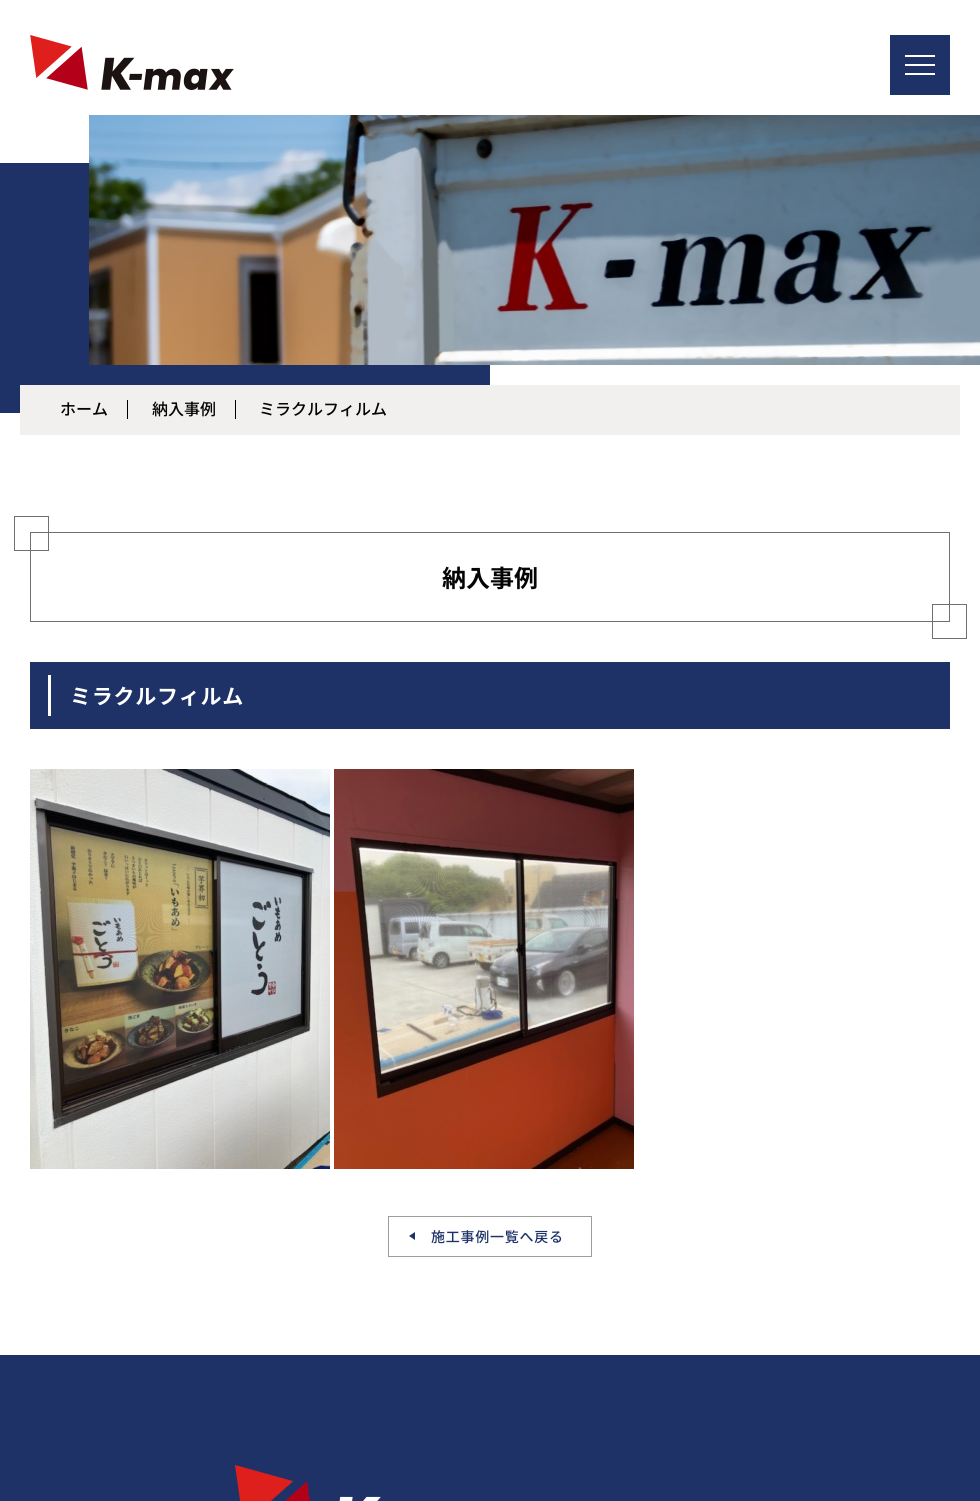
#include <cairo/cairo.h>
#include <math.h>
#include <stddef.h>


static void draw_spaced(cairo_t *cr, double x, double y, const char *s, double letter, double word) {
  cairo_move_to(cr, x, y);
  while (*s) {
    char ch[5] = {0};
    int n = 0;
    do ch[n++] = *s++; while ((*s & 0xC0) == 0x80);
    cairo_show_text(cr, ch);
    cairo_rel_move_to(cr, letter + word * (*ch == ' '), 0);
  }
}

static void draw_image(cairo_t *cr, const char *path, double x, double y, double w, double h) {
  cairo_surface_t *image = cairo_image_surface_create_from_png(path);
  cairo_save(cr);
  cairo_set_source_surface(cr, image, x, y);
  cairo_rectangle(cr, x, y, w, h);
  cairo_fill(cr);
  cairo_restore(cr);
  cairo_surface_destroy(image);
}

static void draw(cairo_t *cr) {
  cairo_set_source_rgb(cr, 1, 1, 1);
  cairo_paint(cr);
  draw_image(cr, "images/1.png", 30, 35, 204, 55);
  cairo_set_source_rgb(cr, 30 / 255.0, 50 / 255.0, 104 / 255.0);
  cairo_rectangle(cr, 890, 35, 60, 60);
  cairo_fill(cr);
  cairo_set_source_rgb(cr, 1, 1, 1);
  cairo_rectangle(cr, 905, 55, 30, 2);
  cairo_fill(cr);
  cairo_rectangle(cr, 905, 64, 30, 2);
  cairo_fill(cr);
  cairo_rectangle(cr, 905, 73, 30, 2);
  cairo_fill(cr);
  cairo_set_source_rgb(cr, 30 / 255.0, 50 / 255.0, 104 / 255.0);
  cairo_rectangle(cr, 0, 163, 490, 250);
  cairo_fill(cr);
  draw_image(cr, "images/2.png", 89, 115, 891, 250);
  cairo_set_source_rgb(cr, 242 / 255.0, 240 / 255.0, 238 / 255.0);
  cairo_rectangle(cr, 20, 385, 940, 50);
  cairo_fill(cr);
  cairo_set_source_rgb(cr, 0, 0, 0);
  cairo_rectangle(cr, 127, 400, 1, 19);
  cairo_fill(cr);
  cairo_rectangle(cr, 235, 400, 1, 19);
  cairo_fill(cr);
  cairo_rectangle(cr, 30.5, 532.5, 919, 89);
  cairo_set_source_rgb(cr, 112 / 255.0, 112 / 255.0, 112 / 255.0);
  cairo_set_line_width(cr, 1);
  cairo_stroke(cr);
  cairo_rectangle(cr, 14.5, 516.5, 34, 34);
  cairo_stroke(cr);
  cairo_rectangle(cr, 932.5, 604.5, 34, 34);
  cairo_stroke(cr);
  cairo_set_source_rgb(cr, 30 / 255.0, 50 / 255.0, 104 / 255.0);
  cairo_rectangle(cr, 30, 662, 920, 67);
  cairo_fill(cr);
  cairo_set_source_rgb(cr, 1, 1, 1);
  cairo_rectangle(cr, 48, 675, 3, 41);
  cairo_fill(cr);
  draw_image(cr, "images/3.png", 30, 769, 300, 400);
  draw_image(cr, "images/4.png", 334, 769, 300, 400);
  cairo_set_source_rgb(cr, 30 / 255.0, 50 / 255.0, 104 / 255.0);
  cairo_new_path(cr);
  cairo_move_to(cr, 415, 1232);
  cairo_line_to(cr, 415, 1240);
  cairo_line_to(cr, 409, 1236);
  cairo_close_path(cr);
  cairo_fill(cr);
  cairo_rectangle(cr, 388.5, 1216.5, 203, 40);
  cairo_set_source_rgb(cr, 157 / 255.0, 157 / 255.0, 157 / 255.0);
  cairo_stroke(cr);
  cairo_set_source_rgb(cr, 30 / 255.0, 50 / 255.0, 104 / 255.0);
  cairo_rectangle(cr, 0, 1355, 980, 146);
  cairo_fill(cr);
  draw_image(cr, "images/5.png", 235, 1465, 146, 36);
  cairo_select_font_face(cr, "Noto Sans JP Medium", CAIRO_FONT_SLANT_NORMAL, CAIRO_FONT_WEIGHT_NORMAL);
  cairo_set_font_size(cr, 16);
  cairo_set_source_rgb(cr, 4 / 255.0, 4 / 255.0, 4 / 255.0);
  cairo_move_to(cr, 60, 415);
  cairo_show_text(cr, "ホーム");
  cairo_move_to(cr, 152, 415);
  cairo_show_text(cr, "納入事例");
  cairo_move_to(cr, 259, 415);
  cairo_show_text(cr, "ミラクルフィルム");
  cairo_select_font_face(cr, "Noto Sans JP", CAIRO_FONT_SLANT_NORMAL, CAIRO_FONT_WEIGHT_BOLD);
  cairo_set_font_size(cr, 24);
  cairo_move_to(cr, 442, 587);
  cairo_show_text(cr, "納入事例");
  cairo_set_font_size(cr, 21);
  cairo_set_source_rgb(cr, 1, 1, 1);
  draw_spaced(cr, 70, 704, "ミラクルフィルム", 0.75, 0);
  cairo_select_font_face(cr, "Noto Sans JP Medium", CAIRO_FONT_SLANT_NORMAL, CAIRO_FONT_WEIGHT_NORMAL);
  cairo_set_font_size(cr, 14);
  cairo_set_source_rgb(cr, 30 / 255.0, 50 / 255.0, 104 / 255.0);
  draw_spaced(cr, 431, 1242, "施工事例一覧へ戻る", 0.75, 0);
}

int main(void) {
  cairo_surface_t *surface = cairo_image_surface_create(CAIRO_FORMAT_RGB24, 980, 1501);
  cairo_t *cr = cairo_create(surface);
  cairo_font_options_t *options = cairo_font_options_create();
  cairo_font_options_set_hint_metrics(options, CAIRO_HINT_METRICS_OFF);
  cairo_font_options_set_hint_style(options, CAIRO_HINT_STYLE_NONE);
  cairo_set_font_options(cr, options);
  cairo_set_miter_limit(cr, 4);
  draw(cr);
  cairo_surface_write_to_png(surface, "out.png");
  cairo_font_options_destroy(options);
  cairo_destroy(cr);
  cairo_surface_destroy(surface);
  return 0;
}
